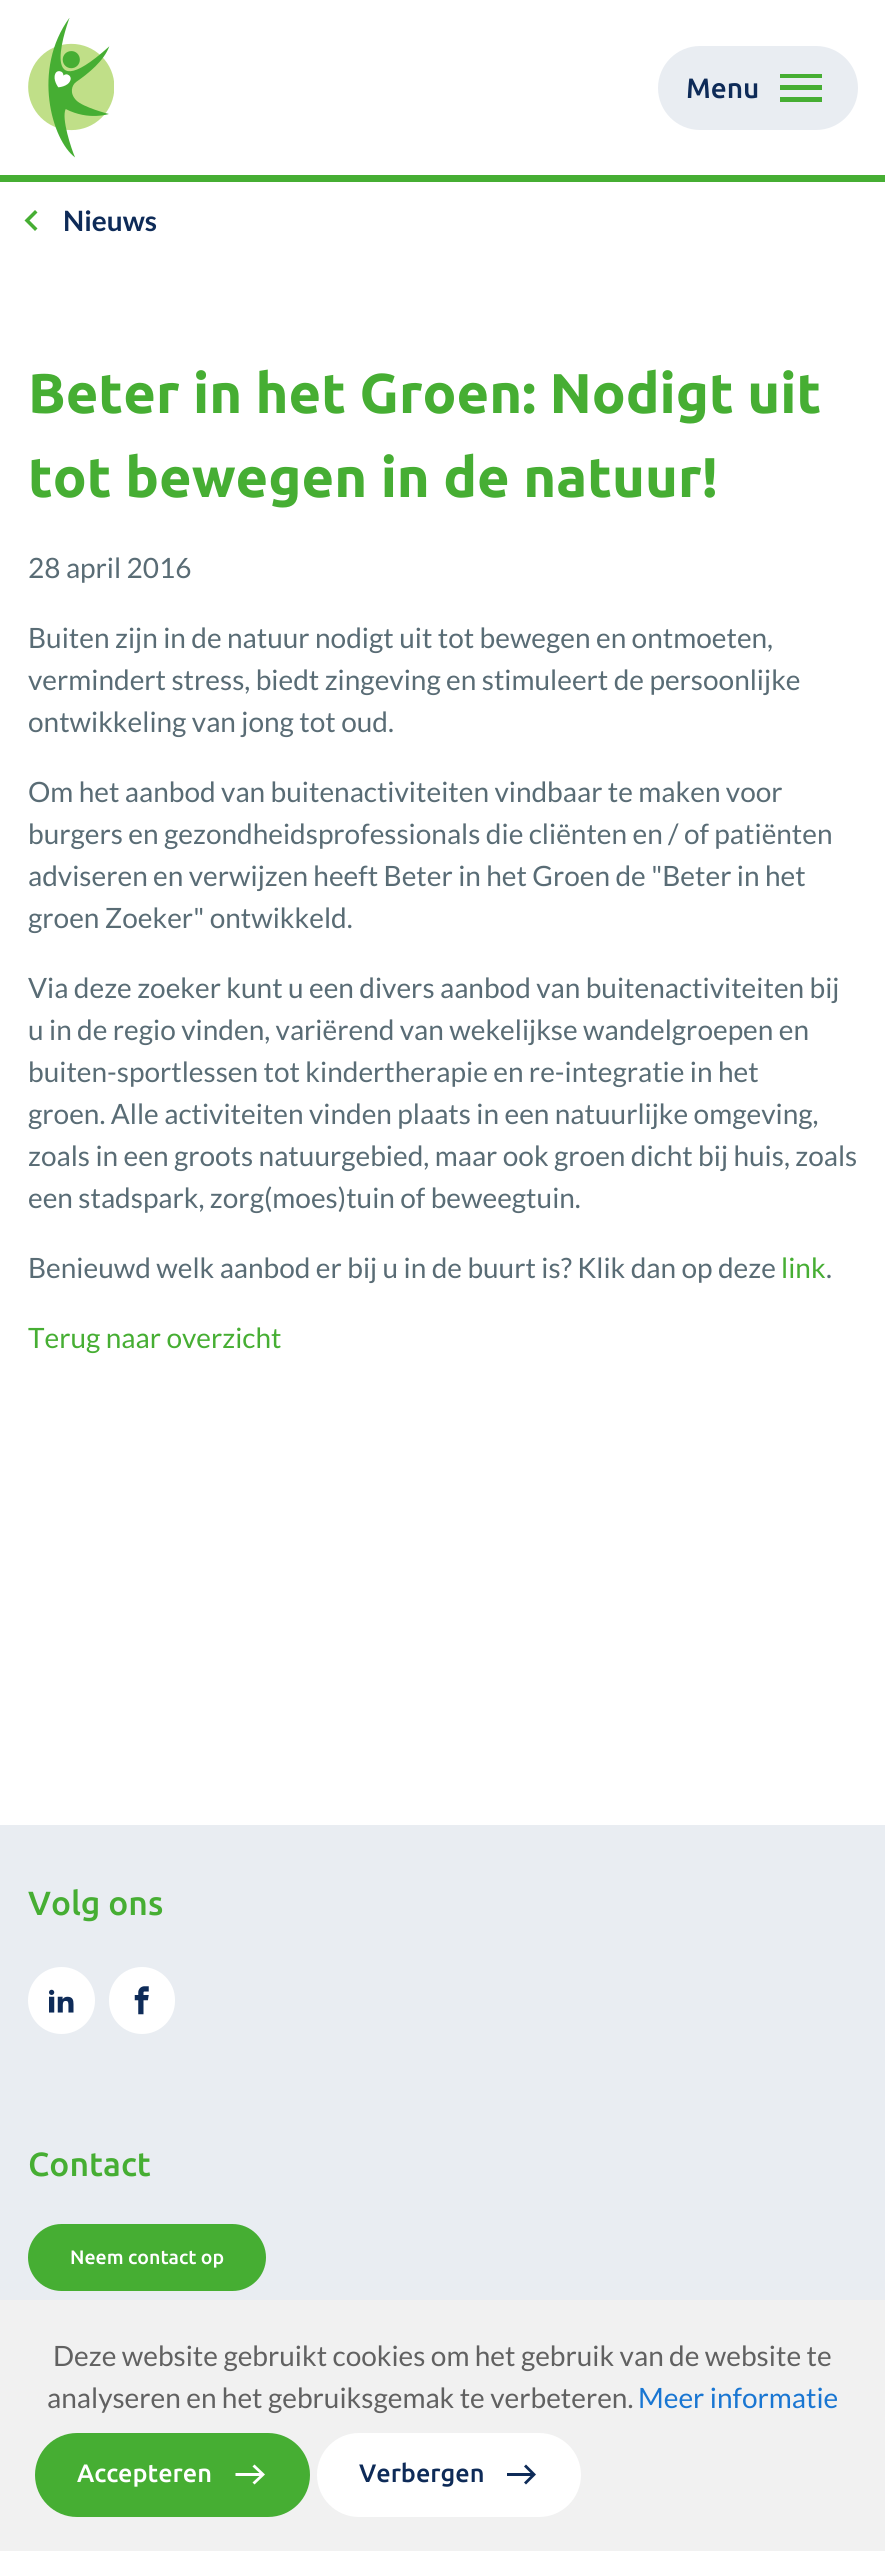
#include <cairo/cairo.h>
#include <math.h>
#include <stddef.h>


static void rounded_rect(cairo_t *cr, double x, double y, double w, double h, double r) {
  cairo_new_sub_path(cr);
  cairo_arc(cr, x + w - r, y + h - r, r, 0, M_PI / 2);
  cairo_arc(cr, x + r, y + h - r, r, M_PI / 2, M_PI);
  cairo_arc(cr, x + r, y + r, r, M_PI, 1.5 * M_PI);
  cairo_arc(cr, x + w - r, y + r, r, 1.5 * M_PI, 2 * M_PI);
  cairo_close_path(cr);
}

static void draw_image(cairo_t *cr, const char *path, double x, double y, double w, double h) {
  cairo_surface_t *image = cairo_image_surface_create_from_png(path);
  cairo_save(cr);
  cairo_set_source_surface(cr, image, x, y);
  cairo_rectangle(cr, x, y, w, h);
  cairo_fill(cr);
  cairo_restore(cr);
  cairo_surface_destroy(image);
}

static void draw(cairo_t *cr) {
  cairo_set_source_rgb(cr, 1, 1, 1);
  cairo_paint(cr);
  cairo_set_source_rgb(cr, 70 / 255.0, 174 / 255.0, 51 / 255.0);
  cairo_rectangle(cr, 0, 175, 885, 7);
  cairo_fill(cr);
  draw_image(cr, "images/1.png", 28, 18, 86, 140);
  cairo_set_source_rgb(cr, 233 / 255.0, 237 / 255.0, 242 / 255.0);
  rounded_rect(cr, 658, 46, 200, 84, 42);
  cairo_fill(cr);
  cairo_set_source_rgb(cr, 70 / 255.0, 174 / 255.0, 51 / 255.0);
  cairo_new_path(cr);
  cairo_move_to(cr, 780, 74);
  cairo_line_to(cr, 822, 74);
  cairo_line_to(cr, 822, 78);
  cairo_line_to(cr, 780, 78);
  cairo_close_path(cr);
  cairo_move_to(cr, 780, 90);
  cairo_line_to(cr, 780, 85);
  cairo_line_to(cr, 822, 85);
  cairo_line_to(cr, 822, 90);
  cairo_close_path(cr);
  cairo_move_to(cr, 780, 102);
  cairo_line_to(cr, 780, 97);
  cairo_line_to(cr, 822, 97);
  cairo_line_to(cr, 822, 102);
  cairo_close_path(cr);
  cairo_fill(cr);
  cairo_new_path(cr);
  cairo_move_to(cr, 37.5, 228.5);
  cairo_line_to(cr, 35, 231);
  cairo_line_to(cr, 24.5, 220.5);
  cairo_line_to(cr, 35, 210);
  cairo_line_to(cr, 37.5, 212.5);
  cairo_line_to(cr, 29.5, 220.5);
  cairo_close_path(cr);
  cairo_fill(cr);
  cairo_set_source_rgb(cr, 233 / 255.0, 237 / 255.0, 242 / 255.0);
  cairo_rectangle(cr, 0, 1825, 885, 475);
  cairo_fill(cr);
  cairo_set_source_rgb(cr, 1, 1, 1);
  cairo_arc(cr, 61.5, 2000.5, 33.5, 0, 2 * M_PI);
  cairo_fill(cr);
  draw_image(cr, "images/2.png", 49, 1989, 25, 24);
  rounded_rect(cr, 109, 1967, 66, 67, 33);
  cairo_fill(cr);
  draw_image(cr, "images/3.png", 134, 1986, 15, 29);
  cairo_set_source_rgb(cr, 70 / 255.0, 174 / 255.0, 51 / 255.0);
  rounded_rect(cr, 28, 2224, 238, 67, 33.5);
  cairo_fill(cr);
  cairo_set_source_rgb(cr, 241 / 255.0, 241 / 255.0, 241 / 255.0);
  cairo_rectangle(cr, 0, 2300, 885, 251);
  cairo_fill(cr);
  cairo_set_source_rgb(cr, 70 / 255.0, 174 / 255.0, 51 / 255.0);
  rounded_rect(cr, 35, 2433, 275, 84, 42);
  cairo_fill(cr);
  cairo_set_source_rgb(cr, 1, 1, 1);
  cairo_new_path(cr);
  cairo_move_to(cr, 254.5, 2464.5);
  cairo_line_to(cr, 252.5, 2466.5);
  cairo_line_to(cr, 259.5, 2473);
  cairo_line_to(cr, 235.5, 2473);
  cairo_line_to(cr, 235.5, 2476);
  cairo_line_to(cr, 259.5, 2476);
  cairo_line_to(cr, 252.5, 2482.5);
  cairo_line_to(cr, 254.5, 2484.5);
  cairo_line_to(cr, 265, 2474.5);
  cairo_close_path(cr);
  cairo_fill(cr);
  rounded_rect(cr, 317, 2433, 264, 84, 42);
  cairo_fill(cr);
  cairo_set_source_rgb(cr, 14 / 255.0, 43 / 255.0, 88 / 255.0);
  cairo_new_path(cr);
  cairo_move_to(cr, 526, 2464.5);
  cairo_line_to(cr, 524, 2466.5);
  cairo_line_to(cr, 530.5, 2473);
  cairo_line_to(cr, 507, 2473);
  cairo_line_to(cr, 507, 2476);
  cairo_line_to(cr, 530.5, 2476);
  cairo_line_to(cr, 524, 2482.5);
  cairo_line_to(cr, 526, 2484.5);
  cairo_line_to(cr, 536, 2474.5);
  cairo_close_path(cr);
  cairo_fill(cr);
  cairo_select_font_face(cr, "Ubuntu Medium", CAIRO_FONT_SLANT_NORMAL, CAIRO_FONT_WEIGHT_NORMAL);
  cairo_set_font_size(cr, 28);
  cairo_move_to(cr, 686, 98);
  cairo_show_text(cr, "Menu");
  cairo_select_font_face(cr, "Lato", CAIRO_FONT_SLANT_NORMAL, CAIRO_FONT_WEIGHT_BOLD);
  cairo_move_to(cr, 63, 231);
  cairo_show_text(cr, "Nieuws");
  cairo_select_font_face(cr, "Ubuntu", CAIRO_FONT_SLANT_NORMAL, CAIRO_FONT_WEIGHT_BOLD);
  cairo_set_font_size(cr, 56);
  cairo_set_source_rgb(cr, 70 / 255.0, 174 / 255.0, 51 / 255.0);
  cairo_move_to(cr, 28, 413);
  cairo_show_text(cr, "Beter in het Groen: Nodigt uit");
  cairo_move_to(cr, 28, 497);
  cairo_show_text(cr, "tot bewegen in de natuur!");
  cairo_select_font_face(cr, "Lato", CAIRO_FONT_SLANT_NORMAL, CAIRO_FONT_WEIGHT_NORMAL);
  cairo_set_font_size(cr, 28);
  cairo_set_source_rgb(cr, 89 / 255.0, 108 / 255.0, 117 / 255.0);
  cairo_move_to(cr, 28, 578);
  cairo_show_text(cr, "28 april 2016");
  cairo_move_to(cr, 28, 648);
  cairo_show_text(cr, "Buiten zijn in de natuur nodigt uit tot bewegen en ontmoeten,");
  cairo_move_to(cr, 28, 690);
  cairo_show_text(cr, "vermindert stress, biedt zingeving en stimuleert de persoonlijke");
  cairo_move_to(cr, 28, 732);
  cairo_show_text(cr, "ontwikkeling van jong tot oud.");
  cairo_move_to(cr, 28, 802);
  cairo_show_text(cr, "Om het aanbod van buitenactiviteiten vindbaar te maken voor");
  cairo_move_to(cr, 28, 844);
  cairo_show_text(cr, "burgers en gezondheidsprofessionals die cliënten en / of patiënten");
  cairo_move_to(cr, 28, 886);
  cairo_show_text(cr, "adviseren en verwijzen heeft Beter in het Groen de \"Beter in het");
  cairo_move_to(cr, 28, 928);
  cairo_show_text(cr, "groen Zoeker\" ontwikkeld.");
  cairo_move_to(cr, 28, 998);
  cairo_show_text(cr, "Via deze zoeker kunt u een divers aanbod van buitenactiviteiten bij");
  cairo_move_to(cr, 28, 1040);
  cairo_show_text(cr, "u in de regio vinden, variërend van wekelijkse wandelgroepen en");
  cairo_move_to(cr, 28, 1082);
  cairo_show_text(cr, "buiten-sportlessen tot kindertherapie en re-integratie in het");
  cairo_move_to(cr, 28, 1124);
  cairo_show_text(cr, "groen. Alle activiteiten vinden plaats in een natuurlijke omgeving,");
  cairo_move_to(cr, 28, 1166);
  cairo_show_text(cr, "zoals in een groots natuurgebied, maar ook groen dicht bij huis, zoals");
  cairo_move_to(cr, 28, 1208);
  cairo_show_text(cr, "een stadspark, zorg(moes)tuin of beweegtuin.");
  cairo_move_to(cr, 28, 1278);
  cairo_show_text(cr, "Benieuwd welk aanbod er bij u in de buurt is? Klik dan op deze");
  cairo_set_source_rgb(cr, 70 / 255.0, 174 / 255.0, 51 / 255.0);
  cairo_move_to(cr, 781, 1278);
  cairo_show_text(cr, "link");
  cairo_set_source_rgb(cr, 89 / 255.0, 108 / 255.0, 117 / 255.0);
  cairo_move_to(cr, 826, 1278);
  cairo_show_text(cr, ".");
  cairo_set_source_rgb(cr, 70 / 255.0, 174 / 255.0, 51 / 255.0);
  cairo_move_to(cr, 28, 1348);
  cairo_show_text(cr, "Terug naar overzicht");
  cairo_select_font_face(cr, "Ubuntu Medium", CAIRO_FONT_SLANT_NORMAL, CAIRO_FONT_WEIGHT_NORMAL);
  cairo_set_font_size(cr, 33.5);
  cairo_move_to(cr, 28, 1915);
  cairo_show_text(cr, "Volg ons");
  cairo_move_to(cr, 28, 2176);
  cairo_show_text(cr, "Contact");
  cairo_set_font_size(cr, 19.5);
  cairo_set_source_rgb(cr, 1, 1, 1);
  cairo_move_to(cr, 70, 2264);
  cairo_show_text(cr, "Neem contact op");
  cairo_select_font_face(cr, "Lato", CAIRO_FONT_SLANT_NORMAL, CAIRO_FONT_WEIGHT_NORMAL);
  cairo_set_font_size(cr, 28);
  cairo_set_source_rgb(cr, 97 / 255.0, 97 / 255.0, 97 / 255.0);
  cairo_move_to(cr, 53, 2366);
  cairo_show_text(cr, "Deze website gebruikt cookies om het gebruik van de website te");
  cairo_move_to(cr, 47, 2408);
  cairo_show_text(cr, "analyseren en het gebruiksgemak te verbeteren.");
  cairo_set_source_rgb(cr, 25 / 255.0, 118 / 255.0, 210 / 255.0);
  cairo_move_to(cr, 638, 2408);
  cairo_show_text(cr, "Meer informatie");
  cairo_select_font_face(cr, "Ubuntu Medium", CAIRO_FONT_SLANT_NORMAL, CAIRO_FONT_WEIGHT_NORMAL);
  cairo_set_font_size(cr, 25.25);
  cairo_set_source_rgb(cr, 1, 1, 1);
  cairo_move_to(cr, 77, 2482);
  cairo_show_text(cr, "Accepteren");
  cairo_set_source_rgb(cr, 14 / 255.0, 43 / 255.0, 88 / 255.0);
  cairo_move_to(cr, 359, 2482);
  cairo_show_text(cr, "Verbergen");
}

int main(void) {
  cairo_surface_t *surface = cairo_image_surface_create(CAIRO_FORMAT_RGB24, 885, 2551);
  cairo_t *cr = cairo_create(surface);
  cairo_font_options_t *options = cairo_font_options_create();
  cairo_font_options_set_hint_metrics(options, CAIRO_HINT_METRICS_OFF);
  cairo_font_options_set_hint_style(options, CAIRO_HINT_STYLE_NONE);
  cairo_set_font_options(cr, options);
  cairo_set_miter_limit(cr, 4);
  draw(cr);
  cairo_surface_write_to_png(surface, "out.png");
  cairo_font_options_destroy(options);
  cairo_destroy(cr);
  cairo_surface_destroy(surface);
  return 0;
}
